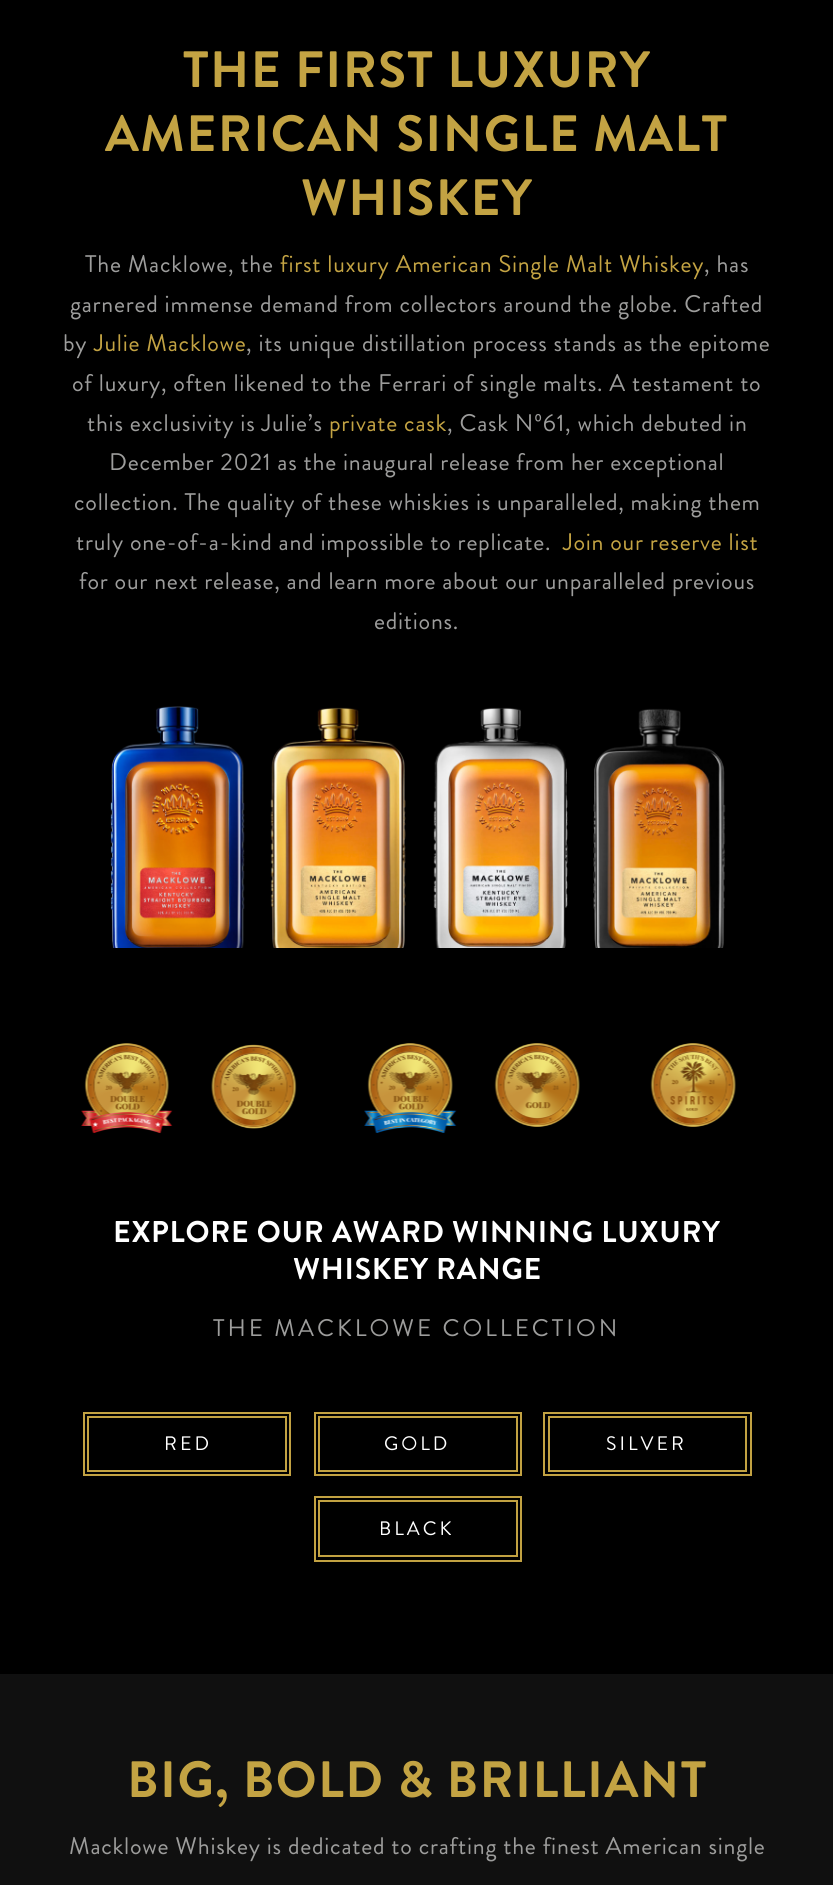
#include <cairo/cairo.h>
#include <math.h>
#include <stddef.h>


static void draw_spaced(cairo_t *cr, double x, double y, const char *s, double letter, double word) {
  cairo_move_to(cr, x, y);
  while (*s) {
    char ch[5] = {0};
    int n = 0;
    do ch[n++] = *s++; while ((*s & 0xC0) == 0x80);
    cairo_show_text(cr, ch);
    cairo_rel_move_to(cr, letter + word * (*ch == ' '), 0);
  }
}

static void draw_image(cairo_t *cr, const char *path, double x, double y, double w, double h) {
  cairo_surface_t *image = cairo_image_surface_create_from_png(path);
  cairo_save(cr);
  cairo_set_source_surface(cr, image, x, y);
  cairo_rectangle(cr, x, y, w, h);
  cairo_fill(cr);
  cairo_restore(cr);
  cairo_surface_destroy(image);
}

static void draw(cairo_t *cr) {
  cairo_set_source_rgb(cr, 0, 0, 0);
  cairo_paint(cr);
  draw_image(cr, "images/1.png", 63, 706, 710, 242);
  draw_image(cr, "images/2.png", 81, 1043, 92, 91);
  draw_image(cr, "images/3.png", 211, 1044, 86, 85);
  draw_image(cr, "images/4.png", 364, 1043, 93, 90);
  draw_image(cr, "images/5.png", 494, 1043, 86, 84);
  draw_image(cr, "images/6.png", 650, 1043, 86, 84);
  cairo_rectangle(cr, 84, 1413, 206, 62);
  cairo_set_source_rgb(cr, 194 / 255.0, 162 / 255.0, 66 / 255.0);
  cairo_stroke(cr);
  cairo_rectangle(cr, 88, 1417, 198, 54);
  cairo_stroke(cr);
  cairo_rectangle(cr, 315, 1413, 206, 62);
  cairo_stroke(cr);
  cairo_rectangle(cr, 319, 1417, 198, 54);
  cairo_stroke(cr);
  cairo_rectangle(cr, 544, 1413, 207, 62);
  cairo_stroke(cr);
  cairo_rectangle(cr, 549, 1417, 197, 54);
  cairo_stroke(cr);
  cairo_rectangle(cr, 315, 1497, 206, 64);
  cairo_stroke(cr);
  cairo_rectangle(cr, 319, 1501, 198, 55);
  cairo_stroke(cr);
  cairo_set_source_rgb(cr, 16 / 255.0, 16 / 255.0, 16 / 255.0);
  cairo_rectangle(cr, 0, 1674, 833, 211);
  cairo_fill(cr);
  cairo_select_font_face(cr, "Brandon Grotesque", CAIRO_FONT_SLANT_NORMAL, CAIRO_FONT_WEIGHT_BOLD);
  cairo_set_font_size(cr, 51);
  cairo_set_source_rgb(cr, 195 / 255.0, 163 / 255.0, 67 / 255.0);
  draw_spaced(cr, 183, 87, "THE FIRST LUXURY", 1.5, 0);
  draw_spaced(cr, 105, 151, "AMERICAN SINGLE MALT", 1.5, 0);
  draw_spaced(cr, 301, 215, "WHISKEY", 1.5, 0);
  cairo_select_font_face(cr, "Brandon Grotesque", CAIRO_FONT_SLANT_NORMAL, CAIRO_FONT_WEIGHT_NORMAL);
  cairo_set_font_size(cr, 24);
  cairo_set_source_rgb(cr, 157 / 255.0, 157 / 255.0, 156 / 255.0);
  draw_spaced(cr, 85, 272, "The Macklowe, the", 0.75, 0);
  cairo_set_source_rgb(cr, 195 / 255.0, 163 / 255.0, 67 / 255.0);
  draw_spaced(cr, 280, 272, "first luxury American Single Malt Whiskey", 0.75, 0);
  cairo_set_source_rgb(cr, 157 / 255.0, 157 / 255.0, 156 / 255.0);
  draw_spaced(cr, 704, 272, ", has", 0.75, 0);
  draw_spaced(cr, 70, 312, "garnered immense demand from collectors around the globe. Crafted", 0.75, 0);
  draw_spaced(cr, 63, 351, "by", 0.75, 0);
  cairo_set_source_rgb(cr, 195 / 255.0, 163 / 255.0, 67 / 255.0);
  draw_spaced(cr, 94, 351, "Julie Macklowe", 0.75, 0);
  cairo_set_source_rgb(cr, 157 / 255.0, 157 / 255.0, 156 / 255.0);
  draw_spaced(cr, 246, 351, ", its unique distillation process stands as the epitome", 0.75, 0);
  draw_spaced(cr, 72, 391, "of luxury, often likened to the Ferrari of single malts. A testament to", 0.75, 0);
  draw_spaced(cr, 87, 431, "this exclusivity is Julie’s", 0.75, 0);
  cairo_set_source_rgb(cr, 195 / 255.0, 163 / 255.0, 67 / 255.0);
  draw_spaced(cr, 329, 431, "private cask", 0.75, 0);
  cairo_set_source_rgb(cr, 157 / 255.0, 157 / 255.0, 156 / 255.0);
  draw_spaced(cr, 447, 431, ", Cask Nº61, which debuted in", 0.75, 0);
  draw_spaced(cr, 109, 470, "December 2021 as the inaugural release from her exceptional", 0.75, 0);
  draw_spaced(cr, 74, 510, "collection. The quality of these whiskies is unparalleled, making them", 0.75, 0);
  draw_spaced(cr, 76, 550, "truly one-of-a-kind and impossible to replicate.", 0.75, 0);
  cairo_set_source_rgb(cr, 195 / 255.0, 163 / 255.0, 67 / 255.0);
  draw_spaced(cr, 563, 550, "Join our reserve list", 0.75, 0);
  cairo_set_source_rgb(cr, 157 / 255.0, 157 / 255.0, 156 / 255.0);
  draw_spaced(cr, 79, 589, "for our next release, and learn more about our unparalleled previous", 0.75, 0);
  draw_spaced(cr, 374, 629, "editions.", 0.75, 0);
  cairo_select_font_face(cr, "Brandon Grotesque", CAIRO_FONT_SLANT_NORMAL, CAIRO_FONT_WEIGHT_BOLD);
  cairo_set_font_size(cr, 30);
  cairo_set_source_rgb(cr, 1, 1, 1);
  draw_spaced(cr, 113, 1242, "EXPLORE OUR AWARD WINNING LUXURY", 0.75, 0);
  draw_spaced(cr, 293, 1279, "WHISKEY RANGE", 0.75, 0);
  cairo_select_font_face(cr, "Brandon Grotesque", CAIRO_FONT_SLANT_NORMAL, CAIRO_FONT_WEIGHT_NORMAL);
  cairo_set_font_size(cr, 24);
  cairo_set_source_rgb(cr, 157 / 255.0, 157 / 255.0, 156 / 255.0);
  draw_spaced(cr, 213, 1336, "THE MACKLOWE COLLECTION", 3, 0);
  cairo_set_font_size(cr, 19.5);
  cairo_set_source_rgb(cr, 1, 1, 1);
  draw_spaced(cr, 164, 1450, "RED", 3, 0);
  draw_spaced(cr, 384, 1450, "GOLD", 3, 0);
  draw_spaced(cr, 606, 1450, "SILVER", 3, 0);
  draw_spaced(cr, 379, 1535, "BLACK", 3, 0);
  cairo_select_font_face(cr, "Brandon Grotesque", CAIRO_FONT_SLANT_NORMAL, CAIRO_FONT_WEIGHT_BOLD);
  cairo_set_font_size(cr, 51);
  cairo_set_source_rgb(cr, 195 / 255.0, 163 / 255.0, 67 / 255.0);
  draw_spaced(cr, 127, 1797, "BIG, BOLD & BRILLIANT", 1.5, 0);
  cairo_select_font_face(cr, "Brandon Grotesque", CAIRO_FONT_SLANT_NORMAL, CAIRO_FONT_WEIGHT_NORMAL);
  cairo_set_font_size(cr, 24);
  cairo_set_source_rgb(cr, 157 / 255.0, 157 / 255.0, 156 / 255.0);
  draw_spaced(cr, 69, 1854, "Macklowe Whiskey is dedicated to crafting the finest American single", 0.75, 0);
}

int main(void) {
  cairo_surface_t *surface = cairo_image_surface_create(CAIRO_FORMAT_RGB24, 833, 1885);
  cairo_t *cr = cairo_create(surface);
  cairo_font_options_t *options = cairo_font_options_create();
  cairo_font_options_set_hint_metrics(options, CAIRO_HINT_METRICS_OFF);
  cairo_font_options_set_hint_style(options, CAIRO_HINT_STYLE_NONE);
  cairo_set_font_options(cr, options);
  cairo_set_miter_limit(cr, 4);
  draw(cr);
  cairo_surface_write_to_png(surface, "out.png");
  cairo_font_options_destroy(options);
  cairo_destroy(cr);
  cairo_surface_destroy(surface);
  return 0;
}
